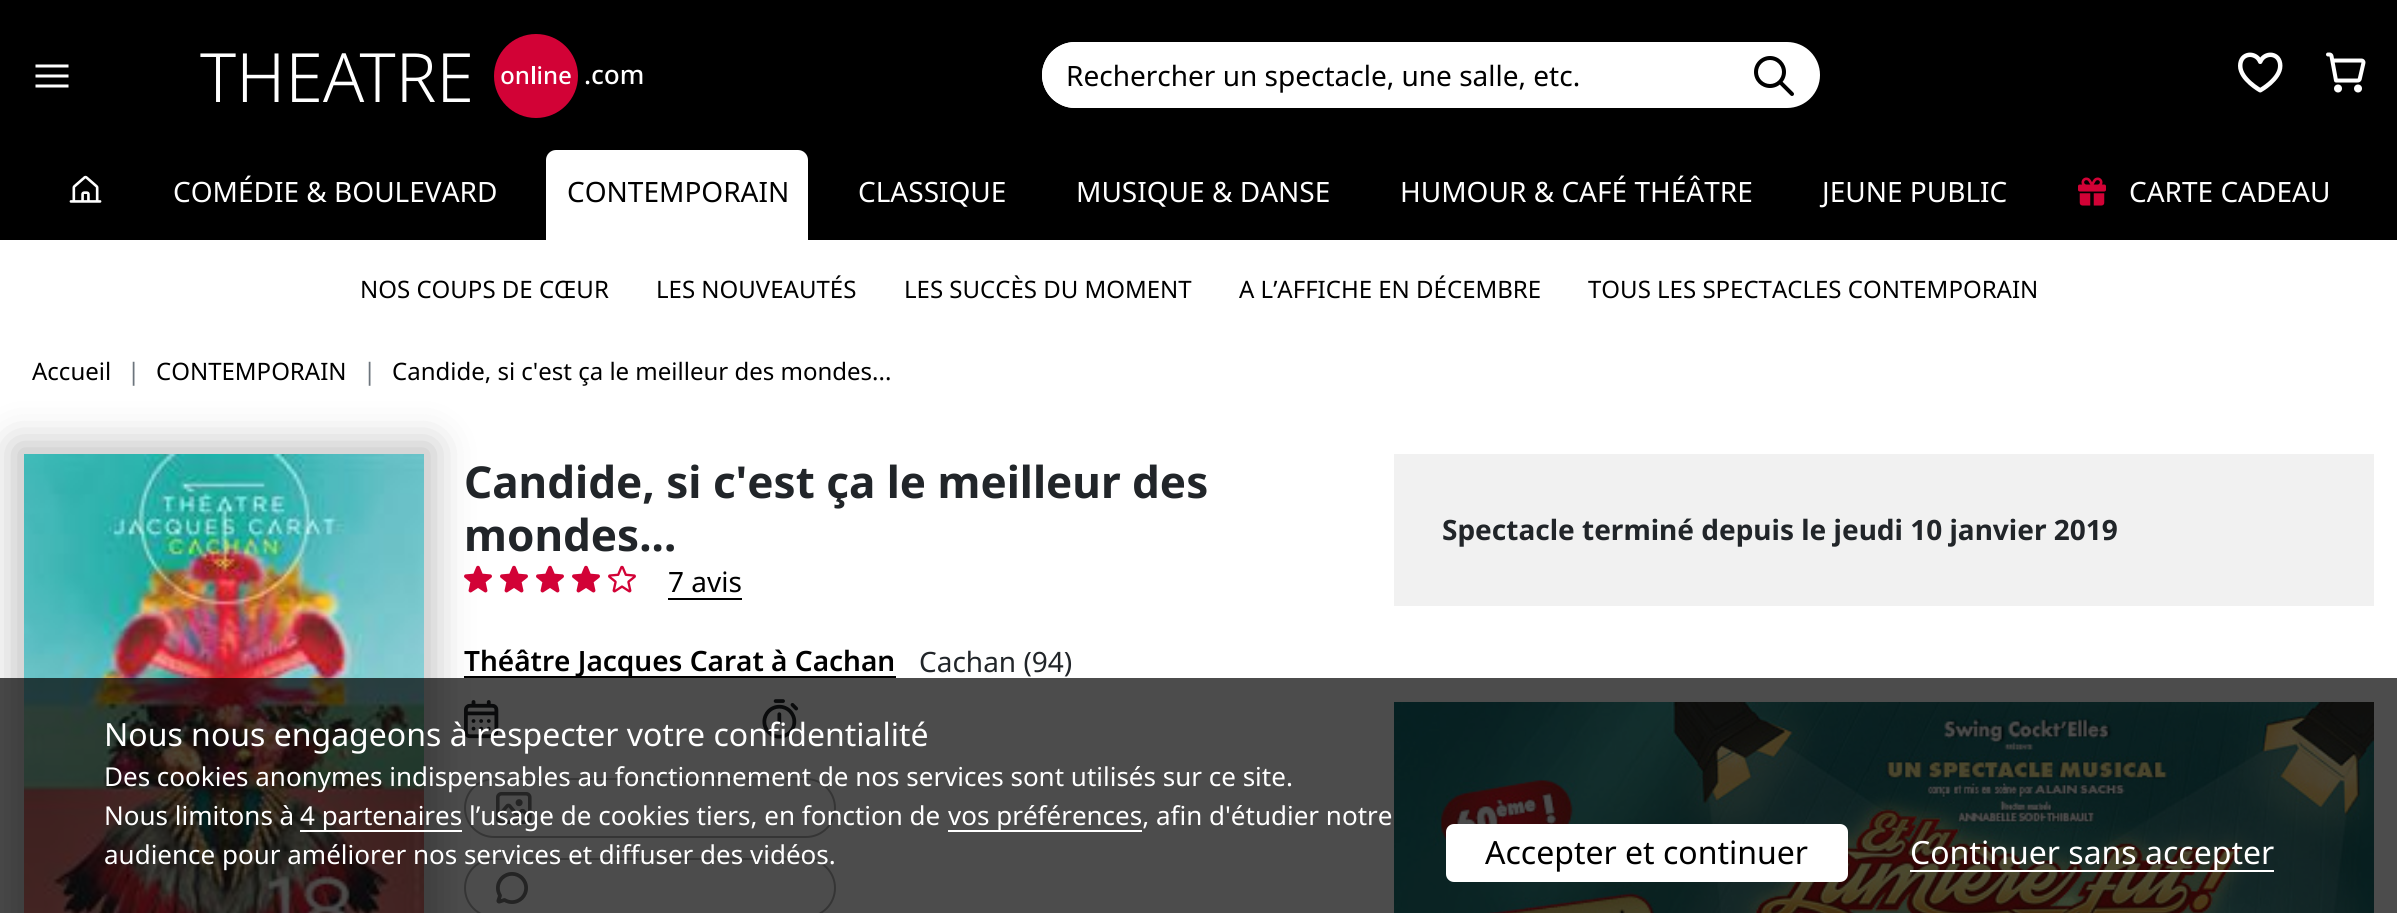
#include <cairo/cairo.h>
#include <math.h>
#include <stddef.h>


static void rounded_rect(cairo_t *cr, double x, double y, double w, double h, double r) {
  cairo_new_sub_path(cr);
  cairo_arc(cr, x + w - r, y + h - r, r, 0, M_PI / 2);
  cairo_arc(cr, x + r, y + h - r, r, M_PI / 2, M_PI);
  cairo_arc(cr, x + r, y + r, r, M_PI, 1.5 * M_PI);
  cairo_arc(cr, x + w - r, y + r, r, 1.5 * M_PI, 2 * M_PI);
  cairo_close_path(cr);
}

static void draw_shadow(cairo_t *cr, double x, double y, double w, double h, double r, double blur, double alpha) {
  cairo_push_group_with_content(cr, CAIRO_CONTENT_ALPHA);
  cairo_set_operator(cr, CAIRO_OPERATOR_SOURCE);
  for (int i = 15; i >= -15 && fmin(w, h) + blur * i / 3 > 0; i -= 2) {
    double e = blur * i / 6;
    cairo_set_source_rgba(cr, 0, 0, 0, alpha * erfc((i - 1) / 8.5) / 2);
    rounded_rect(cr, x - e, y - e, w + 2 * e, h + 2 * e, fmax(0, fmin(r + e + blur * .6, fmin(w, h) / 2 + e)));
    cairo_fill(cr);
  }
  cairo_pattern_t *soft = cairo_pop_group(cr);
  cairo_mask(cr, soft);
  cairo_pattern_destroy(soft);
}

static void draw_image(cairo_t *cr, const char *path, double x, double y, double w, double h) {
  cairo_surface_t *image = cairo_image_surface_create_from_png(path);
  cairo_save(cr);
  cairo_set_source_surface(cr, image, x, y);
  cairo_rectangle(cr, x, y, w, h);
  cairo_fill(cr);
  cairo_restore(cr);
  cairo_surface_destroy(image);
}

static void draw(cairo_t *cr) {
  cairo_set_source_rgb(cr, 1, 1, 1);
  cairo_paint(cr);
  cairo_set_source_rgb(cr, 0, 0, 0);
  cairo_rectangle(cr, 0, 0, 2397, 240);
  cairo_fill(cr);
  cairo_set_source_rgb(cr, 1, 1, 1);
  cairo_new_path(cr);
  cairo_move_to(cr, 35.5, 64.5);
  cairo_line_to(cr, 35.5, 67.5);
  cairo_line_to(cr, 68.5, 67.5);
  cairo_line_to(cr, 68.5, 64.5);
  cairo_close_path(cr);
  cairo_move_to(cr, 35.5, 74.5);
  cairo_line_to(cr, 35.5, 77.5);
  cairo_line_to(cr, 68.5, 77.5);
  cairo_line_to(cr, 68.5, 74.5);
  cairo_close_path(cr);
  cairo_move_to(cr, 35.5, 84.5);
  cairo_line_to(cr, 35.5, 87.5);
  cairo_line_to(cr, 68.5, 87.5);
  cairo_line_to(cr, 68.5, 84.5);
  cairo_close_path(cr);
  cairo_fill(cr);
  draw_image(cr, "images/1.png", 200, 34, 443, 84);
  rounded_rect(cr, 1042, 42, 778, 66, 33);
  cairo_fill(cr);
  cairo_new_path(cr);
  cairo_move_to(cr, 1075, 42);
  cairo_line_to(cr, 1728, 42);
  cairo_line_to(cr, 1728, 108);
  cairo_line_to(cr, 1075, 108);
  cairo_curve_to(cr, 1057, 108, 1042, 93, 1042, 75);
  cairo_curve_to(cr, 1042, 57, 1057, 42, 1075, 42);
  cairo_close_path(cr);
  cairo_fill(cr);
  draw_image(cr, "images/2.png", 1754, 56, 40, 40);
  draw_image(cr, "images/3.png", 2238, 52, 45, 41);
  draw_image(cr, "images/4.png", 2326, 52, 40, 41);
  draw_image(cr, "images/5.png", 69, 175, 33, 28);
  cairo_new_path(cr);
  cairo_move_to(cr, 556, 150);
  cairo_line_to(cr, 798, 150);
  cairo_curve_to(cr, 803.5, 150, 808, 154.5, 808, 160);
  cairo_line_to(cr, 808, 240);
  cairo_line_to(cr, 546, 240);
  cairo_line_to(cr, 546, 160);
  cairo_curve_to(cr, 546, 154.5, 550.5, 150, 556, 150);
  cairo_close_path(cr);
  cairo_fill(cr);
  draw_image(cr, "images/6.png", 2078, 177, 28, 29);
  cairo_set_source_rgb(cr, 0, 0, 0);
  draw_shadow(cr, 14, 444, 420, 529, 0, 20, 0.25);
  draw_image(cr, "images/7.png", 24, 454, 400, 459);
  draw_image(cr, "images/8.png", 464, 565, 28, 28);
  draw_image(cr, "images/9.png", 500, 565, 28, 28);
  draw_image(cr, "images/9.png", 536, 565, 28, 28);
  draw_image(cr, "images/9.png", 572, 565, 28, 28);
  draw_image(cr, "images/10.png", 608, 565, 28, 28);
  cairo_set_source_rgb(cr, 0, 0, 0);
  cairo_rectangle(cr, 668, 598, 74, 2);
  cairo_fill(cr);
  cairo_rectangle(cr, 464, 676, 432, 2);
  cairo_fill(cr);
  draw_image(cr, "images/11.png", 464, 700, 35, 39);
  draw_image(cr, "images/12.png", 762, 699, 37, 40);
  cairo_set_source_rgb(cr, 1, 1, 1);
  rounded_rect(cr, 465, 779, 370, 58, 29);
  cairo_fill_preserve(cr);
  cairo_set_source_rgb(cr, 178 / 255.0, 178 / 255.0, 178 / 255.0);
  cairo_stroke(cr);
  draw_image(cr, "images/13.png", 496, 792, 36, 32);
  cairo_set_source_rgb(cr, 1, 1, 1);
  rounded_rect(cr, 465, 859, 370, 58, 29);
  cairo_fill_preserve(cr);
  cairo_set_source_rgb(cr, 178 / 255.0, 178 / 255.0, 178 / 255.0);
  cairo_stroke(cr);
  draw_image(cr, "images/14.png", 496, 872, 32, 32);
  cairo_set_source_rgb(cr, 241 / 255.0, 241 / 255.0, 241 / 255.0);
  cairo_rectangle(cr, 1394, 454, 980, 152);
  cairo_fill(cr);
  draw_image(cr, "images/15.png", 1394, 702, 980, 211);
  cairo_set_source_rgba(cr, 0, 0, 0, 0.7);
  cairo_rectangle(cr, 0, 678, 2397, 235);
  cairo_fill(cr);
  cairo_set_source_rgb(cr, 1, 1, 1);
  cairo_rectangle(cr, 300, 830, 162, 2);
  cairo_fill(cr);
  cairo_rectangle(cr, 948, 830, 194, 2);
  cairo_fill(cr);
  rounded_rect(cr, 1446, 824, 402, 58, 8);
  cairo_fill(cr);
  cairo_rectangle(cr, 1910, 870, 364, 2);
  cairo_fill(cr);
  cairo_select_font_face(cr, "Noto Sans", CAIRO_FONT_SLANT_NORMAL, CAIRO_FONT_WEIGHT_NORMAL);
  cairo_set_font_size(cr, 28);
  cairo_set_source_rgb(cr, 0, 0, 0);
  cairo_move_to(cr, 1066, 86);
  cairo_show_text(cr, "Rechercher un spectacle, une salle, etc.");
  cairo_set_source_rgb(cr, 1, 1, 1);
  cairo_move_to(cr, 173, 202);
  cairo_show_text(cr, "COMÉDIE & BOULEVARD");
  cairo_move_to(cr, 1400, 202);
  cairo_show_text(cr, "HUMOUR & CAFÉ THÉÂTRE");
  cairo_set_source_rgb(cr, 0, 0, 0);
  cairo_move_to(cr, 567, 202);
  cairo_show_text(cr, "CONTEMPORAIN");
  cairo_set_font_size(cr, 24);
  cairo_move_to(cr, 360, 298);
  cairo_show_text(cr, "NOS COUPS DE CŒUR");
  cairo_move_to(cr, 656, 298);
  cairo_show_text(cr, "LES NOUVEAUTÉS");
  cairo_move_to(cr, 904, 298);
  cairo_show_text(cr, "LES SUCCÈS DU MOMENT");
  cairo_move_to(cr, 1239, 298);
  cairo_show_text(cr, "A L’AFFICHE EN DÉCEMBRE");
  cairo_move_to(cr, 1588, 298);
  cairo_show_text(cr, "TOUS LES SPECTACLES CONTEMPORAIN");
  cairo_set_font_size(cr, 28);
  cairo_set_source_rgb(cr, 1, 1, 1);
  cairo_move_to(cr, 858, 202);
  cairo_show_text(cr, "CLASSIQUE");
  cairo_move_to(cr, 1076, 202);
  cairo_show_text(cr, "MUSIQUE & DANSE");
  cairo_move_to(cr, 1822, 202);
  cairo_show_text(cr, "JEUNE PUBLIC");
  cairo_move_to(cr, 2129, 202);
  cairo_show_text(cr, "CARTE CADEAU");
  cairo_set_font_size(cr, 24);
  cairo_set_source_rgb(cr, 0, 0, 0);
  cairo_move_to(cr, 32, 380);
  cairo_show_text(cr, "Accueil");
  cairo_set_source_rgb(cr, 108 / 255.0, 117 / 255.0, 125 / 255.0);
  cairo_move_to(cr, 127, 380);
  cairo_show_text(cr, "|");
  cairo_set_source_rgb(cr, 0, 0, 0);
  cairo_move_to(cr, 156, 380);
  cairo_show_text(cr, "CONTEMPORAIN");
  cairo_set_source_rgb(cr, 108 / 255.0, 117 / 255.0, 125 / 255.0);
  cairo_move_to(cr, 363, 380);
  cairo_show_text(cr, "|");
  cairo_set_source_rgb(cr, 0, 0, 0);
  cairo_move_to(cr, 392, 380);
  cairo_show_text(cr, "Candide, si c'est ça le meilleur des mondes...");
  cairo_select_font_face(cr, "Noto Sans", CAIRO_FONT_SLANT_NORMAL, CAIRO_FONT_WEIGHT_BOLD);
  cairo_set_font_size(cr, 44);
  cairo_set_source_rgb(cr, 33 / 255.0, 37 / 255.0, 41 / 255.0);
  cairo_move_to(cr, 464, 498);
  cairo_show_text(cr, "Candide, si c'est ça le meilleur des");
  cairo_move_to(cr, 464, 551);
  cairo_show_text(cr, "mondes...");
  cairo_select_font_face(cr, "Noto Sans", CAIRO_FONT_SLANT_NORMAL, CAIRO_FONT_WEIGHT_NORMAL);
  cairo_set_font_size(cr, 28);
  cairo_set_source_rgb(cr, 0, 0, 0);
  cairo_move_to(cr, 668, 592);
  cairo_show_text(cr, "7 avis");
  cairo_select_font_face(cr, "Noto Sans SemiBold", CAIRO_FONT_SLANT_NORMAL, CAIRO_FONT_WEIGHT_NORMAL);
  cairo_move_to(cr, 464, 671);
  cairo_show_text(cr, "Théâtre Jacques Carat à Cachan");
  cairo_select_font_face(cr, "Noto Sans", CAIRO_FONT_SLANT_NORMAL, CAIRO_FONT_WEIGHT_NORMAL);
  cairo_set_source_rgb(cr, 33 / 255.0, 37 / 255.0, 41 / 255.0);
  cairo_move_to(cr, 919, 672);
  cairo_show_text(cr, "Cachan (94)");
  cairo_select_font_face(cr, "Noto Sans", CAIRO_FONT_SLANT_NORMAL, CAIRO_FONT_WEIGHT_BOLD);
  cairo_move_to(cr, 1442, 540);
  cairo_show_text(cr, "Spectacle terminé depuis le jeudi 10 janvier 2019");
  cairo_select_font_face(cr, "Noto Sans", CAIRO_FONT_SLANT_NORMAL, CAIRO_FONT_WEIGHT_NORMAL);
  cairo_set_font_size(cr, 32);
  cairo_set_source_rgb(cr, 1, 1, 1);
  cairo_move_to(cr, 104, 746);
  cairo_show_text(cr, "Nous nous engageons à respecter votre confidentialité");
  cairo_set_font_size(cr, 26);
  cairo_move_to(cr, 104, 786);
  cairo_show_text(cr, "Des cookies anonymes indispensables au fonctionnement de nos services sont utilisés sur ce site.");
  cairo_move_to(cr, 104, 825);
  cairo_show_text(cr, "Nous limitons à");
  cairo_move_to(cr, 300, 825);
  cairo_show_text(cr, "4 partenaires l’usage de cookies tiers, en fonction de");
  cairo_move_to(cr, 948, 825);
  cairo_show_text(cr, "vos préférences, afin d'étudier notre");
  cairo_move_to(cr, 104, 864);
  cairo_show_text(cr, "audience pour améliorer nos services et diffuser des vidéos.");
  cairo_set_font_size(cr, 32);
  cairo_set_source_rgb(cr, 0, 0, 0);
  cairo_move_to(cr, 1485, 864);
  cairo_show_text(cr, "Accepter et continuer");
  cairo_set_source_rgb(cr, 1, 1, 1);
  cairo_move_to(cr, 1910, 864);
  cairo_show_text(cr, "Continuer sans accepter");
}

int main(void) {
  cairo_surface_t *surface = cairo_image_surface_create(CAIRO_FORMAT_RGB24, 2397, 913);
  cairo_t *cr = cairo_create(surface);
  cairo_font_options_t *options = cairo_font_options_create();
  cairo_font_options_set_hint_metrics(options, CAIRO_HINT_METRICS_OFF);
  cairo_font_options_set_hint_style(options, CAIRO_HINT_STYLE_NONE);
  cairo_set_font_options(cr, options);
  cairo_set_miter_limit(cr, 4);
  draw(cr);
  cairo_surface_write_to_png(surface, "out.png");
  cairo_font_options_destroy(options);
  cairo_destroy(cr);
  cairo_surface_destroy(surface);
  return 0;
}
